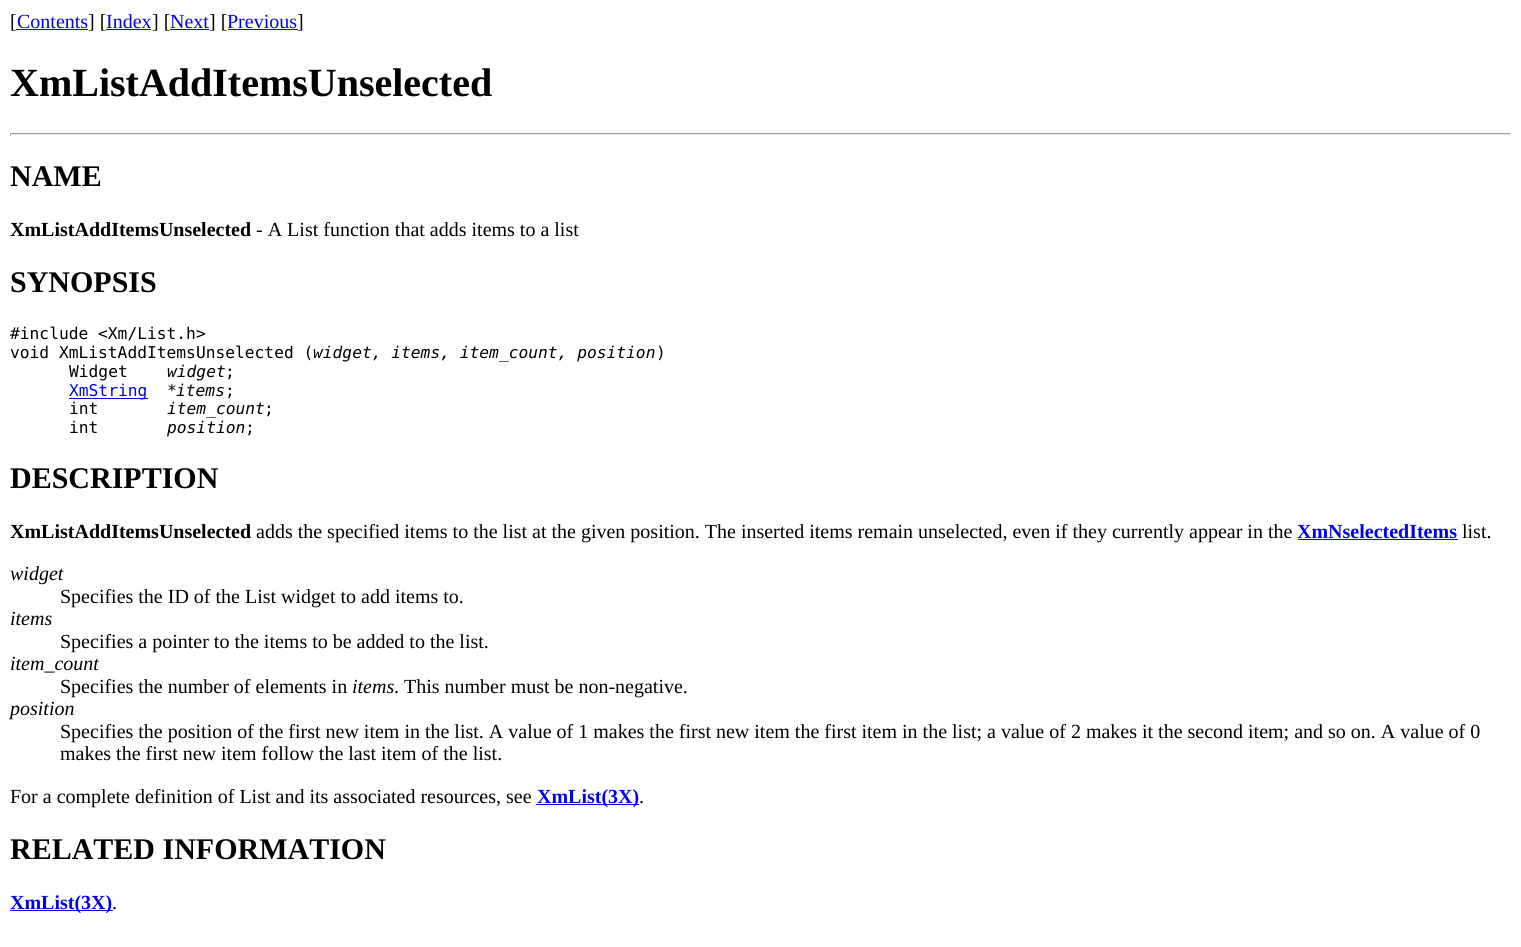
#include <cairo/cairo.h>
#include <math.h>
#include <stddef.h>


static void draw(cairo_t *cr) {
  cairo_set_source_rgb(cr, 1, 1, 1);
  cairo_paint(cr);
  cairo_set_source_rgb(cr, 0, 0, 238 / 255.0);
  cairo_rectangle(cr, 16, 29, 72, 1);
  cairo_fill(cr);
  cairo_rectangle(cr, 106, 29, 45, 1);
  cairo_fill(cr);
  cairo_rectangle(cr, 170, 29, 39, 1);
  cairo_fill(cr);
  cairo_rectangle(cr, 228, 29, 70, 1);
  cairo_fill(cr);
  cairo_set_source_rgb(cr, 159 / 255.0, 159 / 255.0, 159 / 255.0);
  cairo_rectangle(cr, 10, 133, 1501, 1);
  cairo_fill(cr);
  cairo_set_source_rgb(cr, 238 / 255.0, 238 / 255.0, 238 / 255.0);
  cairo_rectangle(cr, 1510, 133, 1, 3);
  cairo_fill(cr);
  cairo_rectangle(cr, 10, 134, 1501, 1);
  cairo_fill(cr);
  cairo_set_source_rgb(cr, 159 / 255.0, 159 / 255.0, 159 / 255.0);
  cairo_rectangle(cr, 10, 133, 1, 3);
  cairo_fill(cr);
  cairo_set_source_rgb(cr, 0, 0, 238 / 255.0);
  cairo_rectangle(cr, 69, 398, 79, 1);
  cairo_fill(cr);
  cairo_rectangle(cr, 1298, 539, 160, 1);
  cairo_fill(cr);
  cairo_rectangle(cr, 536, 804, 103, 1);
  cairo_fill(cr);
  cairo_rectangle(cr, 10, 910, 103, 1);
  cairo_fill(cr);
  cairo_select_font_face(cr, "Liberation Serif", CAIRO_FONT_SLANT_NORMAL, CAIRO_FONT_WEIGHT_NORMAL);
  cairo_set_font_size(cr, 20);
  cairo_set_source_rgb(cr, 0, 0, 0);
  cairo_move_to(cr, 10, 28);
  cairo_show_text(cr, "[");
  cairo_set_source_rgb(cr, 0, 0, 238 / 255.0);
  cairo_move_to(cr, 17, 28);
  cairo_show_text(cr, "Contents");
  cairo_set_source_rgb(cr, 0, 0, 0);
  cairo_move_to(cr, 88, 28);
  cairo_show_text(cr, "] [");
  cairo_set_source_rgb(cr, 0, 0, 238 / 255.0);
  cairo_move_to(cr, 106, 28);
  cairo_show_text(cr, "Index");
  cairo_set_source_rgb(cr, 0, 0, 0);
  cairo_move_to(cr, 152, 28);
  cairo_show_text(cr, "] [");
  cairo_set_source_rgb(cr, 0, 0, 238 / 255.0);
  cairo_move_to(cr, 170, 28);
  cairo_show_text(cr, "Next");
  cairo_set_source_rgb(cr, 0, 0, 0);
  cairo_move_to(cr, 209, 28);
  cairo_show_text(cr, "] [");
  cairo_set_source_rgb(cr, 0, 0, 238 / 255.0);
  cairo_move_to(cr, 227, 28);
  cairo_show_text(cr, "Previous");
  cairo_set_source_rgb(cr, 0, 0, 0);
  cairo_move_to(cr, 297, 28);
  cairo_show_text(cr, "]");
  cairo_select_font_face(cr, "Liberation Serif", CAIRO_FONT_SLANT_NORMAL, CAIRO_FONT_WEIGHT_BOLD);
  cairo_set_font_size(cr, 40);
  cairo_move_to(cr, 10, 96);
  cairo_show_text(cr, "XmListAddItemsUnselected");
  cairo_set_font_size(cr, 30);
  cairo_move_to(cr, 10, 186);
  cairo_show_text(cr, "NAME");
  cairo_set_font_size(cr, 20);
  cairo_move_to(cr, 10, 236);
  cairo_show_text(cr, "XmListAddItemsUnselected");
  cairo_select_font_face(cr, "Liberation Serif", CAIRO_FONT_SLANT_NORMAL, CAIRO_FONT_WEIGHT_NORMAL);
  cairo_move_to(cr, 256, 236);
  cairo_show_text(cr, "- A List function that adds items to a list");
  cairo_select_font_face(cr, "Liberation Serif", CAIRO_FONT_SLANT_NORMAL, CAIRO_FONT_WEIGHT_BOLD);
  cairo_set_font_size(cr, 30);
  cairo_move_to(cr, 10, 292);
  cairo_show_text(cr, "SYNOPSIS");
  cairo_select_font_face(cr, "DejaVu Sans Mono", CAIRO_FONT_SLANT_NORMAL, CAIRO_FONT_WEIGHT_NORMAL);
  cairo_set_font_size(cr, 16.25);
  cairo_move_to(cr, 10, 339);
  cairo_show_text(cr, "#include <Xm/List.h>");
  cairo_move_to(cr, 10, 358);
  cairo_show_text(cr, "void XmListAddItemsUnselected (");
  cairo_select_font_face(cr, "DejaVu Sans Mono", CAIRO_FONT_SLANT_ITALIC, CAIRO_FONT_WEIGHT_NORMAL);
  cairo_move_to(cr, 313, 358);
  cairo_show_text(cr, "widget, items, item_count, position");
  cairo_select_font_face(cr, "DejaVu Sans Mono", CAIRO_FONT_SLANT_NORMAL, CAIRO_FONT_WEIGHT_NORMAL);
  cairo_move_to(cr, 656, 358);
  cairo_show_text(cr, ")");
  cairo_move_to(cr, 69, 377);
  cairo_show_text(cr, "Widget");
  cairo_select_font_face(cr, "DejaVu Sans Mono", CAIRO_FONT_SLANT_ITALIC, CAIRO_FONT_WEIGHT_NORMAL);
  cairo_move_to(cr, 167, 377);
  cairo_show_text(cr, "widget");
  cairo_select_font_face(cr, "DejaVu Sans Mono", CAIRO_FONT_SLANT_NORMAL, CAIRO_FONT_WEIGHT_NORMAL);
  cairo_move_to(cr, 225, 377);
  cairo_show_text(cr, ";");
  cairo_set_source_rgb(cr, 0, 0, 238 / 255.0);
  cairo_move_to(cr, 69, 396);
  cairo_show_text(cr, "XmString");
  cairo_set_source_rgb(cr, 0, 0, 0);
  cairo_move_to(cr, 167, 396);
  cairo_show_text(cr, "*");
  cairo_select_font_face(cr, "DejaVu Sans Mono", CAIRO_FONT_SLANT_ITALIC, CAIRO_FONT_WEIGHT_NORMAL);
  cairo_move_to(cr, 176, 396);
  cairo_show_text(cr, "items");
  cairo_select_font_face(cr, "DejaVu Sans Mono", CAIRO_FONT_SLANT_NORMAL, CAIRO_FONT_WEIGHT_NORMAL);
  cairo_move_to(cr, 225, 396);
  cairo_show_text(cr, ";");
  cairo_move_to(cr, 69, 414);
  cairo_show_text(cr, "int");
  cairo_select_font_face(cr, "DejaVu Sans Mono", CAIRO_FONT_SLANT_ITALIC, CAIRO_FONT_WEIGHT_NORMAL);
  cairo_move_to(cr, 167, 414);
  cairo_show_text(cr, "item_count");
  cairo_select_font_face(cr, "DejaVu Sans Mono", CAIRO_FONT_SLANT_NORMAL, CAIRO_FONT_WEIGHT_NORMAL);
  cairo_move_to(cr, 264, 414);
  cairo_show_text(cr, ";");
  cairo_move_to(cr, 69, 433);
  cairo_show_text(cr, "int");
  cairo_select_font_face(cr, "DejaVu Sans Mono", CAIRO_FONT_SLANT_ITALIC, CAIRO_FONT_WEIGHT_NORMAL);
  cairo_move_to(cr, 167, 433);
  cairo_show_text(cr, "position");
  cairo_select_font_face(cr, "DejaVu Sans Mono", CAIRO_FONT_SLANT_NORMAL, CAIRO_FONT_WEIGHT_NORMAL);
  cairo_move_to(cr, 245, 433);
  cairo_show_text(cr, ";");
  cairo_select_font_face(cr, "Liberation Serif", CAIRO_FONT_SLANT_NORMAL, CAIRO_FONT_WEIGHT_BOLD);
  cairo_set_font_size(cr, 30);
  cairo_move_to(cr, 10, 488);
  cairo_show_text(cr, "DESCRIPTION");
  cairo_set_font_size(cr, 20);
  cairo_move_to(cr, 10, 538);
  cairo_show_text(cr, "XmListAddItemsUnselected");
  cairo_select_font_face(cr, "Liberation Serif", CAIRO_FONT_SLANT_NORMAL, CAIRO_FONT_WEIGHT_NORMAL);
  cairo_move_to(cr, 256, 538);
  cairo_show_text(cr, "adds the specified items to the list at the given position. The inserted items remain unselected, even if they currently appear in the");
  cairo_select_font_face(cr, "Liberation Serif", CAIRO_FONT_SLANT_NORMAL, CAIRO_FONT_WEIGHT_BOLD);
  cairo_set_source_rgb(cr, 0, 0, 238 / 255.0);
  cairo_move_to(cr, 1297, 538);
  cairo_show_text(cr, "XmNselectedItems");
  cairo_select_font_face(cr, "Liberation Serif", CAIRO_FONT_SLANT_NORMAL, CAIRO_FONT_WEIGHT_NORMAL);
  cairo_set_source_rgb(cr, 0, 0, 0);
  cairo_move_to(cr, 1462, 538);
  cairo_show_text(cr, "list.");
  cairo_select_font_face(cr, "Liberation Serif", CAIRO_FONT_SLANT_ITALIC, CAIRO_FONT_WEIGHT_NORMAL);
  cairo_move_to(cr, 10, 580);
  cairo_show_text(cr, "widget");
  cairo_select_font_face(cr, "Liberation Serif", CAIRO_FONT_SLANT_NORMAL, CAIRO_FONT_WEIGHT_NORMAL);
  cairo_move_to(cr, 60, 603);
  cairo_show_text(cr, "Specifies the ID of the List widget to add items to.");
  cairo_select_font_face(cr, "Liberation Serif", CAIRO_FONT_SLANT_ITALIC, CAIRO_FONT_WEIGHT_NORMAL);
  cairo_move_to(cr, 10, 625);
  cairo_show_text(cr, "items");
  cairo_select_font_face(cr, "Liberation Serif", CAIRO_FONT_SLANT_NORMAL, CAIRO_FONT_WEIGHT_NORMAL);
  cairo_move_to(cr, 60, 648);
  cairo_show_text(cr, "Specifies a pointer to the items to be added to the list.");
  cairo_select_font_face(cr, "Liberation Serif", CAIRO_FONT_SLANT_ITALIC, CAIRO_FONT_WEIGHT_NORMAL);
  cairo_move_to(cr, 10, 670);
  cairo_show_text(cr, "item_count");
  cairo_select_font_face(cr, "Liberation Serif", CAIRO_FONT_SLANT_NORMAL, CAIRO_FONT_WEIGHT_NORMAL);
  cairo_move_to(cr, 60, 693);
  cairo_show_text(cr, "Specifies the number of elements in");
  cairo_select_font_face(cr, "Liberation Serif", CAIRO_FONT_SLANT_ITALIC, CAIRO_FONT_WEIGHT_NORMAL);
  cairo_move_to(cr, 352, 693);
  cairo_show_text(cr, "items");
  cairo_select_font_face(cr, "Liberation Serif", CAIRO_FONT_SLANT_NORMAL, CAIRO_FONT_WEIGHT_NORMAL);
  cairo_move_to(cr, 394, 693);
  cairo_show_text(cr, ". This number must be non-negative.");
  cairo_select_font_face(cr, "Liberation Serif", CAIRO_FONT_SLANT_ITALIC, CAIRO_FONT_WEIGHT_NORMAL);
  cairo_move_to(cr, 10, 715);
  cairo_show_text(cr, "position");
  cairo_select_font_face(cr, "Liberation Serif", CAIRO_FONT_SLANT_NORMAL, CAIRO_FONT_WEIGHT_NORMAL);
  cairo_move_to(cr, 60, 738);
  cairo_show_text(cr, "Specifies the position of the first new item in the list. A value of 1 makes the first new item the first item in the list; a value of 2 makes it the second item; and so on. A value of 0");
  cairo_move_to(cr, 60, 760);
  cairo_show_text(cr, "makes the first new item follow the last item of the list.");
  cairo_move_to(cr, 10, 803);
  cairo_show_text(cr, "For a complete definition of List and its associated resources, see");
  cairo_select_font_face(cr, "Liberation Serif", CAIRO_FONT_SLANT_NORMAL, CAIRO_FONT_WEIGHT_BOLD);
  cairo_set_source_rgb(cr, 0, 0, 238 / 255.0);
  cairo_move_to(cr, 537, 803);
  cairo_show_text(cr, "XmList(3X)");
  cairo_select_font_face(cr, "Liberation Serif", CAIRO_FONT_SLANT_NORMAL, CAIRO_FONT_WEIGHT_NORMAL);
  cairo_set_source_rgb(cr, 0, 0, 0);
  cairo_move_to(cr, 639, 803);
  cairo_show_text(cr, ".");
  cairo_select_font_face(cr, "Liberation Serif", CAIRO_FONT_SLANT_NORMAL, CAIRO_FONT_WEIGHT_BOLD);
  cairo_set_font_size(cr, 30);
  cairo_move_to(cr, 10, 859);
  cairo_show_text(cr, "RELATED INFORMATION");
  cairo_set_font_size(cr, 20);
  cairo_set_source_rgb(cr, 0, 0, 238 / 255.0);
  cairo_move_to(cr, 10, 909);
  cairo_show_text(cr, "XmList(3X)");
  cairo_select_font_face(cr, "Liberation Serif", CAIRO_FONT_SLANT_NORMAL, CAIRO_FONT_WEIGHT_NORMAL);
  cairo_set_source_rgb(cr, 0, 0, 0);
  cairo_move_to(cr, 112, 909);
  cairo_show_text(cr, ".");
}

int main(void) {
  cairo_surface_t *surface = cairo_image_surface_create(CAIRO_FORMAT_RGB24, 1521, 947);
  cairo_t *cr = cairo_create(surface);
  cairo_font_options_t *options = cairo_font_options_create();
  cairo_font_options_set_hint_metrics(options, CAIRO_HINT_METRICS_OFF);
  cairo_font_options_set_hint_style(options, CAIRO_HINT_STYLE_NONE);
  cairo_set_font_options(cr, options);
  cairo_set_miter_limit(cr, 4);
  draw(cr);
  cairo_surface_write_to_png(surface, "out.png");
  cairo_font_options_destroy(options);
  cairo_destroy(cr);
  cairo_surface_destroy(surface);
  return 0;
}
